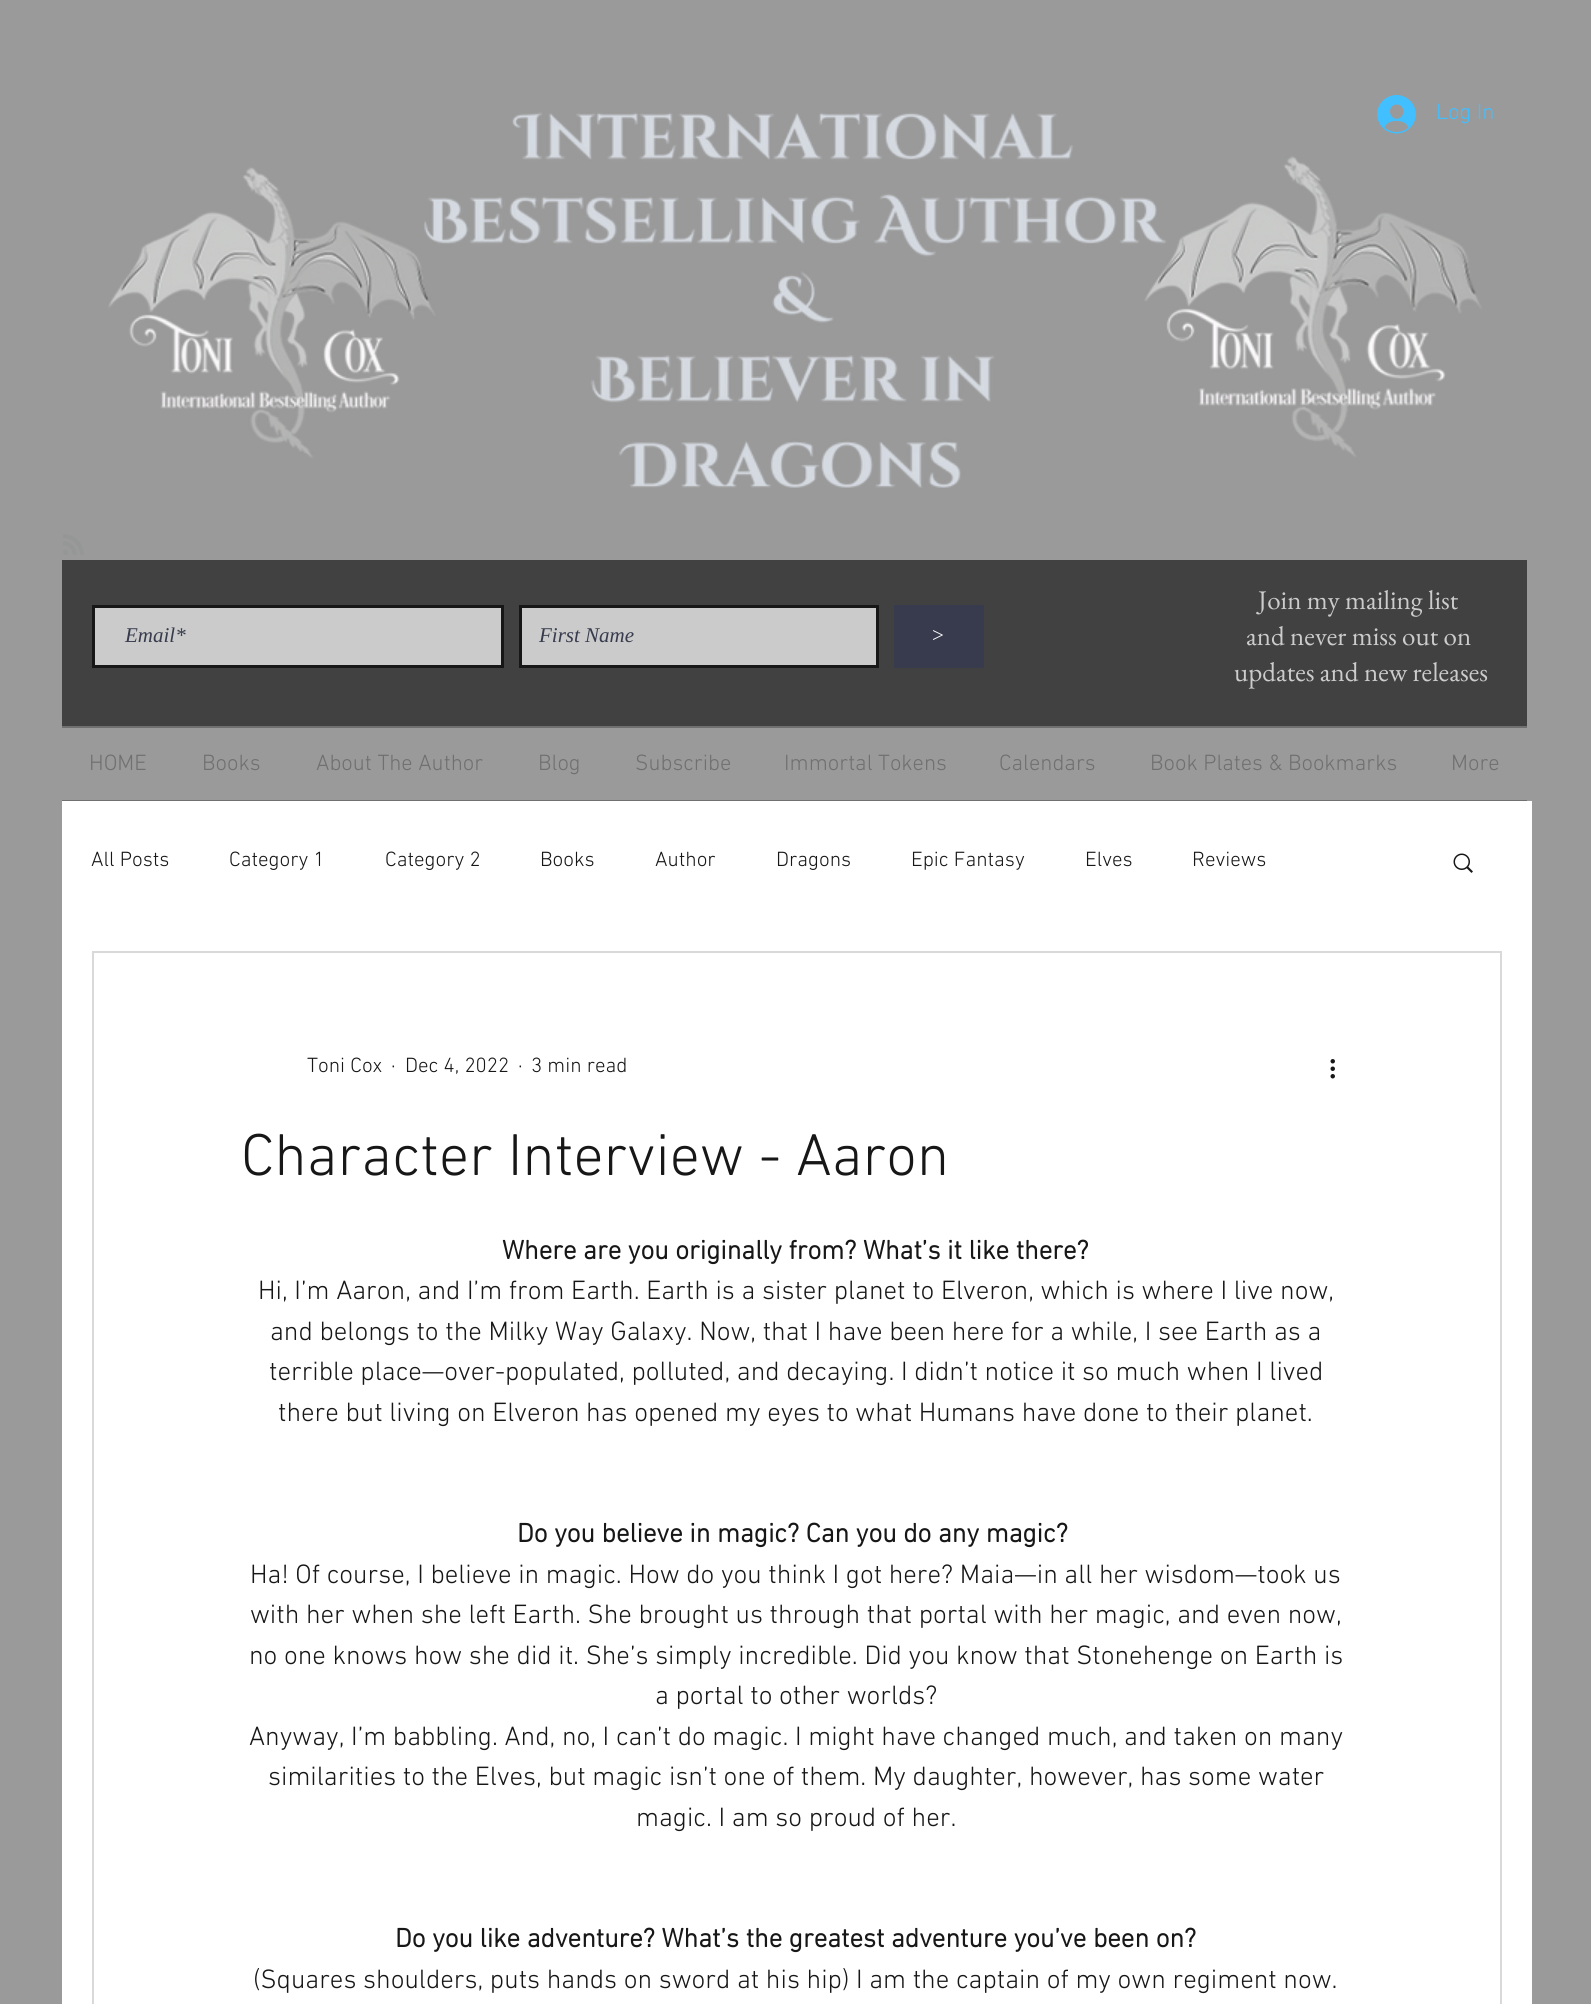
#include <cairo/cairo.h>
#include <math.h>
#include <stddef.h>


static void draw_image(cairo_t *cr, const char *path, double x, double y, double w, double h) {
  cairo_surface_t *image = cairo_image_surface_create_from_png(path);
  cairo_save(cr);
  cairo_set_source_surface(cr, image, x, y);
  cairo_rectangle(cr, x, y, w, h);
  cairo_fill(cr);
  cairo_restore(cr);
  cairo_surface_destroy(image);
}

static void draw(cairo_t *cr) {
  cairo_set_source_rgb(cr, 154 / 255.0, 154 / 255.0, 154 / 255.0);
  cairo_paint(cr);
  draw_image(cr, "images/2.png", 108, 112, 1374, 376);
  draw_image(cr, "images/1.png", 1377, 95, 39, 39);
  draw_image(cr, "images/3.png", 63, 534, 21, 21);
  cairo_set_source_rgb(cr, 65 / 255.0, 65 / 255.0, 65 / 255.0);
  cairo_rectangle(cr, 62, 560, 1465, 166);
  cairo_fill(cr);
  cairo_set_source_rgb(cr, 203 / 255.0, 203 / 255.0, 203 / 255.0);
  cairo_rectangle(cr, 93.5, 606.5, 409, 60);
  cairo_fill_preserve(cr);
  cairo_set_source_rgb(cr, 23 / 255.0, 23 / 255.0, 23 / 255.0);
  cairo_set_line_width(cr, 3);
  cairo_stroke(cr);
  cairo_set_source_rgb(cr, 203 / 255.0, 203 / 255.0, 203 / 255.0);
  cairo_rectangle(cr, 520.5, 606.5, 357, 60);
  cairo_fill_preserve(cr);
  cairo_set_source_rgb(cr, 23 / 255.0, 23 / 255.0, 23 / 255.0);
  cairo_stroke(cr);
  cairo_set_source_rgb(cr, 55 / 255.0, 59 / 255.0, 77 / 255.0);
  cairo_rectangle(cr, 894, 605, 90, 63);
  cairo_fill(cr);
  cairo_set_source_rgb(cr, 112 / 255.0, 112 / 255.0, 112 / 255.0);
  cairo_rectangle(cr, 62, 726, 1465, 2);
  cairo_fill(cr);
  cairo_rectangle(cr, 62, 800, 1465, 1);
  cairo_fill(cr);
  cairo_set_source_rgb(cr, 1, 1, 1);
  cairo_rectangle(cr, 62, 801, 1470, 1203);
  cairo_fill(cr);
  draw_image(cr, "images/4.png", 1453, 853, 20, 20);
  cairo_rectangle(cr, 93, 952, 1408, 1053);
  cairo_set_source_rgb(cr, 217 / 255.0, 217 / 255.0, 217 / 255.0);
  cairo_set_line_width(cr, 2);
  cairo_stroke(cr);
  draw_image(cr, "images/5.png", 1330, 1059, 5, 20);
  cairo_select_font_face(cr, "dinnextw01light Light", CAIRO_FONT_SLANT_NORMAL, CAIRO_FONT_WEIGHT_NORMAL);
  cairo_set_font_size(cr, 22.5);
  cairo_set_source_rgb(cr, 65 / 255.0, 191 / 255.0, 1);
  cairo_move_to(cr, 1436, 119);
  cairo_show_text(cr, "Log In");
  cairo_select_font_face(cr, "Liberation Serif", CAIRO_FONT_SLANT_ITALIC, CAIRO_FONT_WEIGHT_NORMAL);
  cairo_set_font_size(cr, 21);
  cairo_set_source_rgb(cr, 55 / 255.0, 59 / 255.0, 77 / 255.0);
  cairo_move_to(cr, 125, 642);
  cairo_show_text(cr, "Email*");
  cairo_move_to(cr, 539, 642);
  cairo_show_text(cr, "First Name");
  cairo_select_font_face(cr, "Liberation Serif", CAIRO_FONT_SLANT_NORMAL, CAIRO_FONT_WEIGHT_NORMAL);
  cairo_set_source_rgb(cr, 1, 1, 1);
  cairo_move_to(cr, 932, 642);
  cairo_show_text(cr, ">");
  cairo_select_font_face(cr, "EB Garamond", CAIRO_FONT_SLANT_NORMAL, CAIRO_FONT_WEIGHT_NORMAL);
  cairo_set_font_size(cr, 27);
  cairo_set_source_rgb(cr, 204 / 255.0, 204 / 255.0, 204 / 255.0);
  cairo_move_to(cr, 1258, 609);
  cairo_show_text(cr, "Join my mailing list");
  cairo_move_to(cr, 1246, 645);
  cairo_show_text(cr, "and never miss out on");
  cairo_move_to(cr, 1234, 681);
  cairo_show_text(cr, "updates and new releases");
  cairo_select_font_face(cr, "dinnextw01light Light", CAIRO_FONT_SLANT_NORMAL, CAIRO_FONT_WEIGHT_NORMAL);
  cairo_set_font_size(cr, 22.5);
  cairo_set_source_rgb(cr, 112 / 255.0, 112 / 255.0, 112 / 255.0);
  cairo_move_to(cr, 89, 770);
  cairo_show_text(cr, "HOME");
  cairo_move_to(cr, 202, 770);
  cairo_show_text(cr, "Books");
  cairo_move_to(cr, 316, 770);
  cairo_show_text(cr, "About The Author");
  cairo_move_to(cr, 538, 770);
  cairo_show_text(cr, "Blog");
  cairo_move_to(cr, 635, 770);
  cairo_show_text(cr, "Subscribe");
  cairo_move_to(cr, 784, 770);
  cairo_show_text(cr, "Immortal Tokens");
  cairo_move_to(cr, 999, 770);
  cairo_show_text(cr, "Calendars");
  cairo_move_to(cr, 1150, 770);
  cairo_show_text(cr, "Book Plates & Bookmarks");
  cairo_move_to(cr, 1451, 770);
  cairo_show_text(cr, "More");
  cairo_set_font_size(cr, 21);
  cairo_set_source_rgb(cr, 23 / 255.0, 23 / 255.0, 23 / 255.0);
  cairo_move_to(cr, 91, 866);
  cairo_show_text(cr, "All Posts");
  cairo_move_to(cr, 229, 866);
  cairo_show_text(cr, "Category 1");
  cairo_move_to(cr, 385, 866);
  cairo_show_text(cr, "Category 2");
  cairo_move_to(cr, 540, 866);
  cairo_show_text(cr, "Books");
  cairo_move_to(cr, 655, 866);
  cairo_show_text(cr, "Author");
  cairo_move_to(cr, 776, 866);
  cairo_show_text(cr, "Dragons");
  cairo_move_to(cr, 911, 866);
  cairo_show_text(cr, "Epic Fantasy");
  cairo_move_to(cr, 1085, 866);
  cairo_show_text(cr, "Elves");
  cairo_move_to(cr, 1192, 866);
  cairo_show_text(cr, "Reviews");
  cairo_move_to(cr, 307, 1072);
  cairo_show_text(cr, "Toni Cox");
  cairo_move_to(cr, 391, 1072);
  cairo_show_text(cr, "·");
  cairo_move_to(cr, 405, 1072);
  cairo_show_text(cr, "Dec 4, 2022");
  cairo_move_to(cr, 518, 1072);
  cairo_show_text(cr, "·");
  cairo_move_to(cr, 531, 1072);
  cairo_show_text(cr, "3 min read");
  cairo_set_font_size(cr, 60);
  cairo_move_to(cr, 241, 1175);
  cairo_show_text(cr, "Character Interview - Aaron");
  cairo_select_font_face(cr, "dinnextw01light", CAIRO_FONT_SLANT_NORMAL, CAIRO_FONT_WEIGHT_BOLD);
  cairo_set_font_size(cr, 27);
  cairo_move_to(cr, 502, 1259);
  cairo_show_text(cr, "Where are you originally from? What’s it like there?");
  cairo_select_font_face(cr, "dinnextw01light Light", CAIRO_FONT_SLANT_NORMAL, CAIRO_FONT_WEIGHT_NORMAL);
  cairo_move_to(cr, 258, 1299);
  cairo_show_text(cr, "Hi, I’m Aaron, and I’m from Earth. Earth is a sister planet to Elveron, which is where I live now,");
  cairo_move_to(cr, 270, 1340);
  cairo_show_text(cr, "and belongs to the Milky Way Galaxy. Now, that I have been here for a while, I see Earth as a");
  cairo_move_to(cr, 269, 1380);
  cairo_show_text(cr, "terrible place—over-populated, polluted, and decaying. I didn’t notice it so much when I lived");
  cairo_move_to(cr, 278, 1421);
  cairo_show_text(cr, "there but living on Elveron has opened my eyes to what Humans have done to their planet.");
  cairo_select_font_face(cr, "dinnextw01light", CAIRO_FONT_SLANT_NORMAL, CAIRO_FONT_WEIGHT_BOLD);
  cairo_move_to(cr, 517, 1542);
  cairo_show_text(cr, "Do you believe in magic? Can you do any magic?");
  cairo_select_font_face(cr, "dinnextw01light Light", CAIRO_FONT_SLANT_NORMAL, CAIRO_FONT_WEIGHT_NORMAL);
  cairo_move_to(cr, 250, 1583);
  cairo_show_text(cr, "Ha! Of course, I believe in magic. How do you think I got here? Maia—in all her wisdom—took us");
  cairo_move_to(cr, 250, 1623);
  cairo_show_text(cr, "with her when she left Earth. She brought us through that portal with her magic, and even now,");
  cairo_move_to(cr, 249, 1664);
  cairo_show_text(cr, "no one knows how she did it. She’s simply incredible. Did you know that Stonehenge on Earth is");
  cairo_move_to(cr, 655, 1704);
  cairo_show_text(cr, "a portal to other worlds?");
  cairo_move_to(cr, 249, 1745);
  cairo_show_text(cr, "Anyway, I’m babbling. And, no, I can’t do magic. I might have changed much, and taken on many");
  cairo_move_to(cr, 268, 1785);
  cairo_show_text(cr, "similarities to the Elves, but magic isn’t one of them. My daughter, however, has some water");
  cairo_move_to(cr, 636, 1826);
  cairo_show_text(cr, "magic. I am so proud of her.");
  cairo_select_font_face(cr, "dinnextw01light", CAIRO_FONT_SLANT_NORMAL, CAIRO_FONT_WEIGHT_BOLD);
  cairo_move_to(cr, 395, 1947);
  cairo_show_text(cr, "Do you like adventure? What’s the greatest adventure you’ve been on?");
  cairo_select_font_face(cr, "dinnextw01light Light", CAIRO_FONT_SLANT_NORMAL, CAIRO_FONT_WEIGHT_NORMAL);
  cairo_move_to(cr, 253, 1988);
  cairo_show_text(cr, "(Squares shoulders, puts hands on sword at his hip) I am the captain of my own regiment now.");
}

int main(void) {
  cairo_surface_t *surface = cairo_image_surface_create(CAIRO_FORMAT_RGB24, 1591, 2004);
  cairo_t *cr = cairo_create(surface);
  cairo_font_options_t *options = cairo_font_options_create();
  cairo_font_options_set_hint_metrics(options, CAIRO_HINT_METRICS_OFF);
  cairo_font_options_set_hint_style(options, CAIRO_HINT_STYLE_NONE);
  cairo_set_font_options(cr, options);
  cairo_set_miter_limit(cr, 4);
  draw(cr);
  cairo_surface_write_to_png(surface, "out.png");
  cairo_font_options_destroy(options);
  cairo_destroy(cr);
  cairo_surface_destroy(surface);
  return 0;
}
